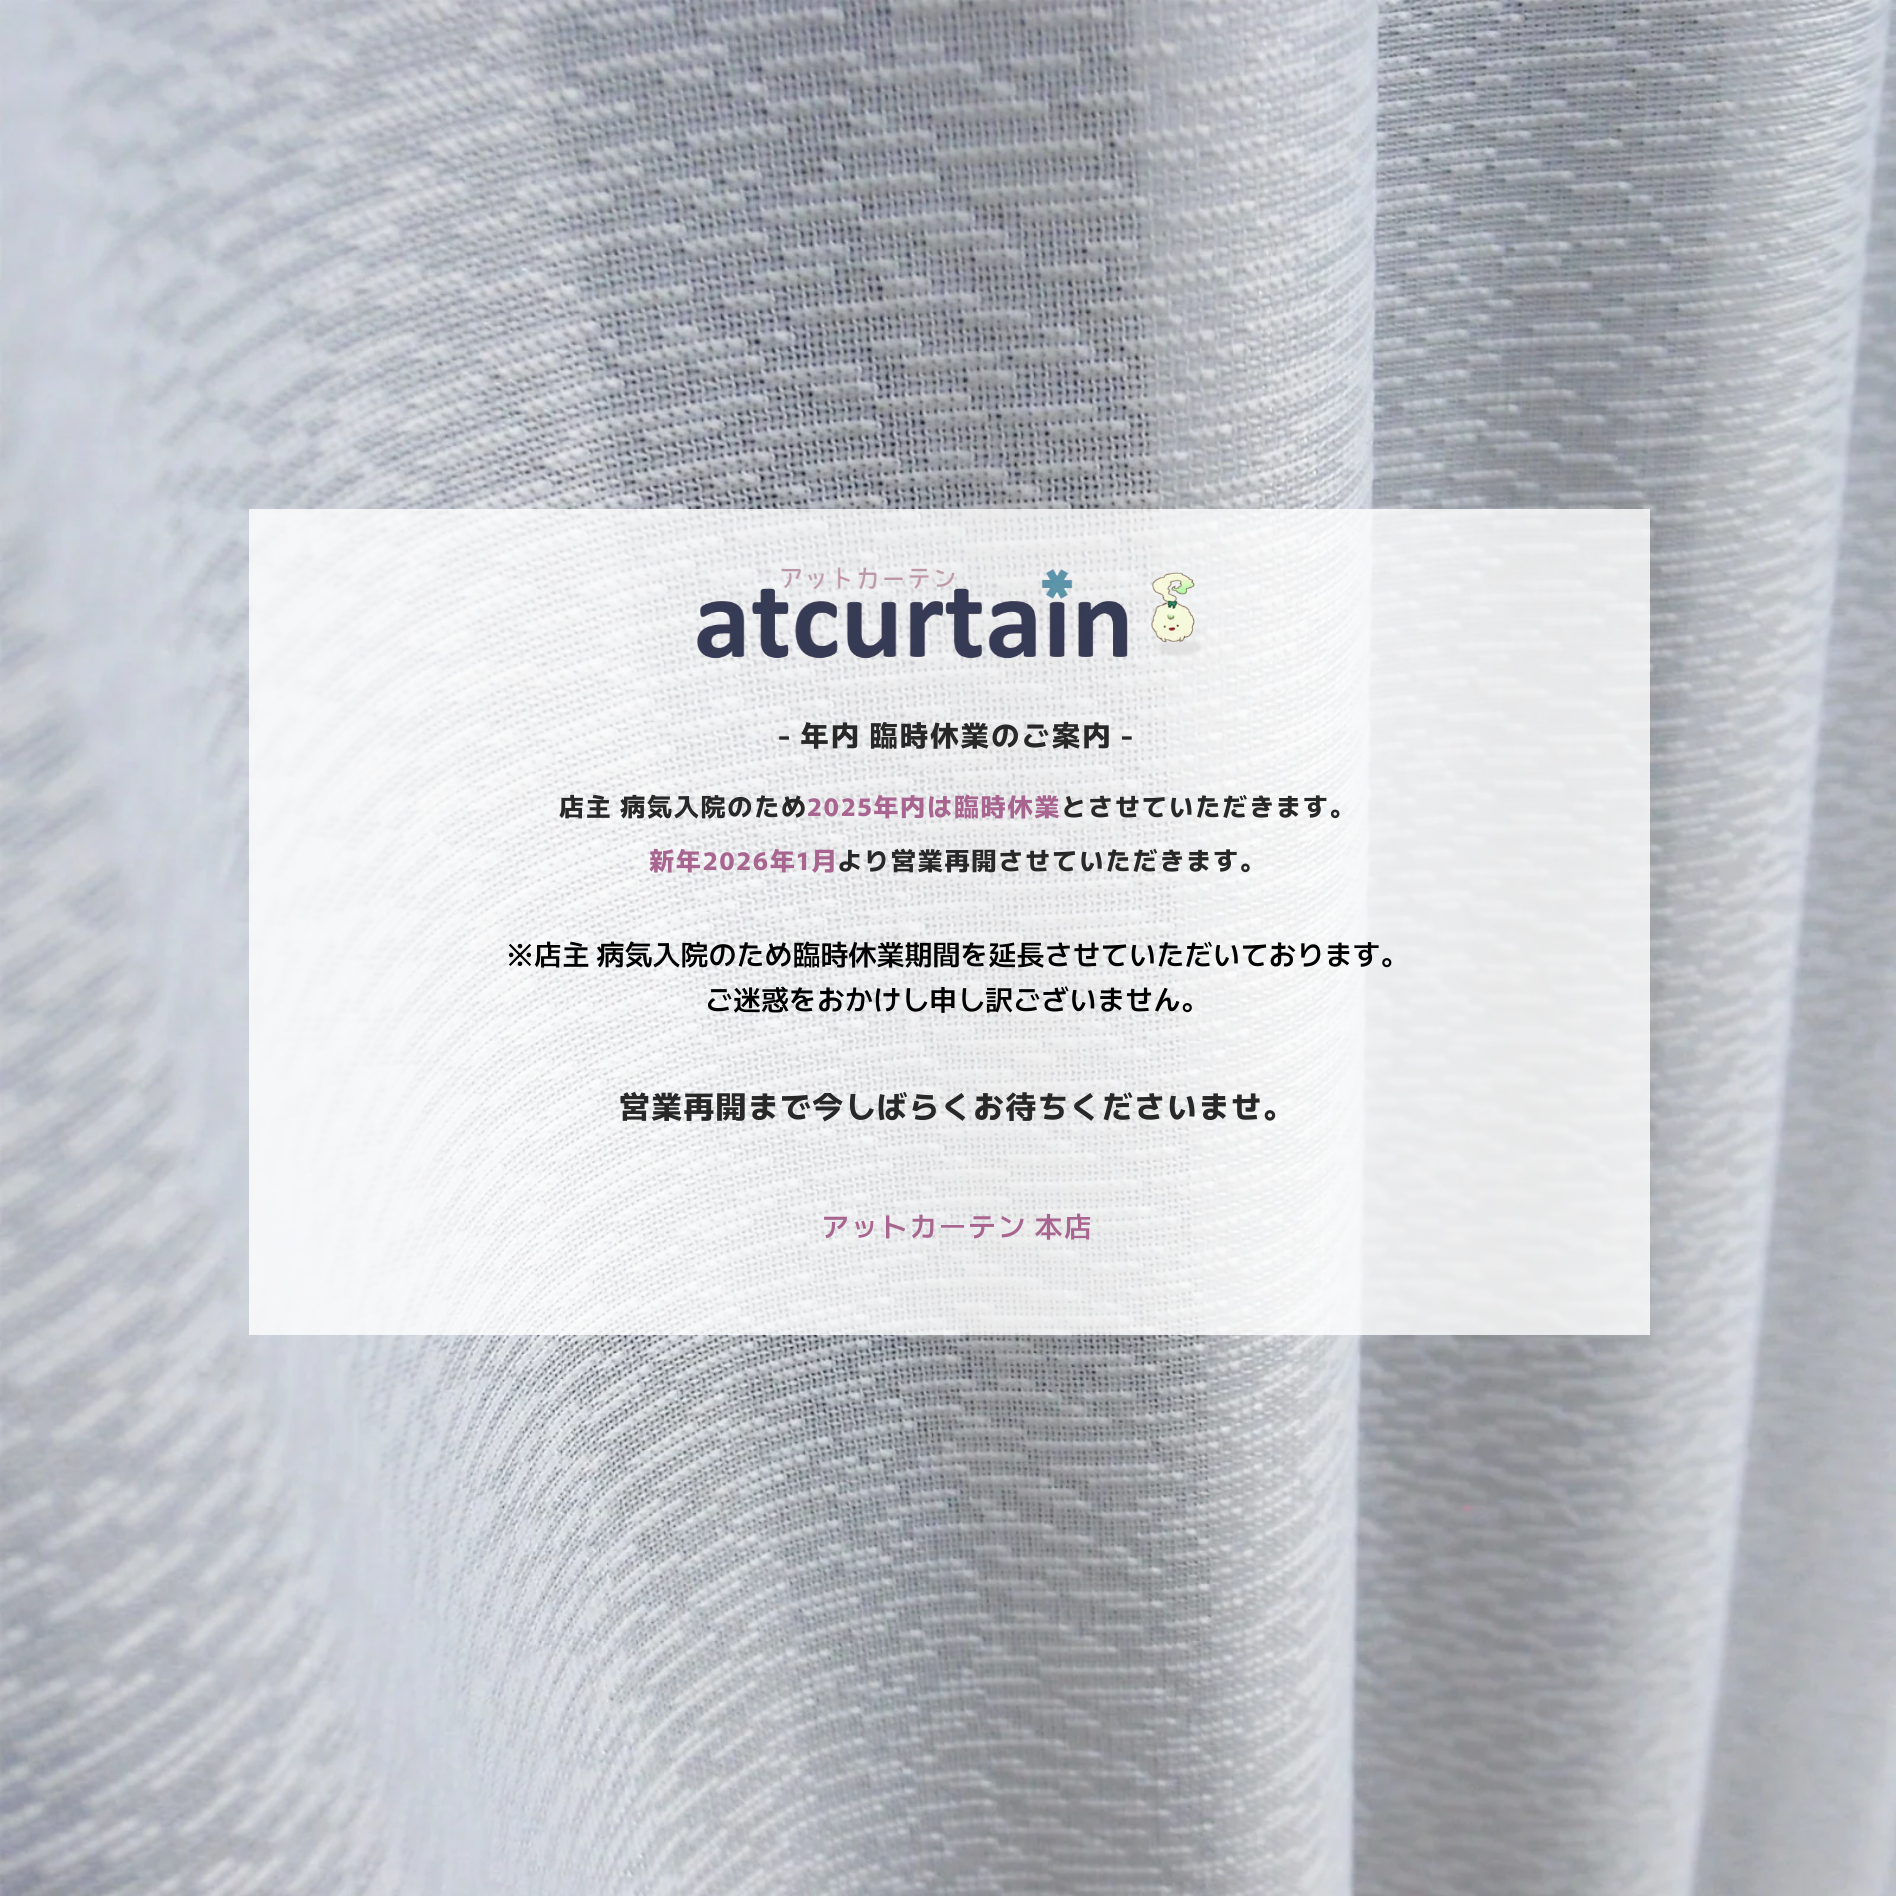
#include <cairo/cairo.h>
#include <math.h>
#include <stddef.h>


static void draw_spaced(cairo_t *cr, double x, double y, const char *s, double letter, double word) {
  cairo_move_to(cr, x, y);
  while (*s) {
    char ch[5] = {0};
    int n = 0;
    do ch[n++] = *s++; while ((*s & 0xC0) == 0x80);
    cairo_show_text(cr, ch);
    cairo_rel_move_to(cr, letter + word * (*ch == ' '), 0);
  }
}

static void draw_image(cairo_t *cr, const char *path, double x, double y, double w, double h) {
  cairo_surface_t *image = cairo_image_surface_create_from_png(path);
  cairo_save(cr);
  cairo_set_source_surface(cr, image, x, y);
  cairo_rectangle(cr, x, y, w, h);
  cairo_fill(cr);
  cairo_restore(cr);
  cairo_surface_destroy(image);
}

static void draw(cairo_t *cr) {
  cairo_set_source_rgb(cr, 1, 1, 1);
  cairo_paint(cr);
  draw_image(cr, "images/1.png", 0, 0, 1896, 1896);
  cairo_set_source_rgba(cr, 1, 1, 1, 0.8);
  cairo_rectangle(cr, 249, 509, 1401, 826);
  cairo_fill(cr);
  draw_image(cr, "images/2.png", 697, 567, 510, 92);
  cairo_select_font_face(cr, "Murecho", CAIRO_FONT_SLANT_NORMAL, CAIRO_FONT_WEIGHT_BOLD);
  cairo_set_font_size(cr, 28.5);
  cairo_set_source_rgb(cr, 40 / 255.0, 40 / 255.0, 40 / 255.0);
  draw_spaced(cr, 778, 746, "- 年内 臨時休業のご案内 -", 1.9, 0);
  cairo_set_font_size(cr, 25.25);
  draw_spaced(cr, 559, 816, "店主 病気入院のため", 1.6, 0);
  cairo_set_source_rgb(cr, 168 / 255.0, 101 / 255.0, 144 / 255.0);
  draw_spaced(cr, 807, 816, "2025年内は臨時休業", 1.6, 0);
  cairo_set_source_rgb(cr, 40 / 255.0, 40 / 255.0, 40 / 255.0);
  draw_spaced(cr, 1061, 816, "とさせていただきます。", 1.6, 0);
  cairo_set_source_rgb(cr, 168 / 255.0, 101 / 255.0, 144 / 255.0);
  draw_spaced(cr, 649, 870, "新年2026年1月", 1.6, 0);
  cairo_set_source_rgb(cr, 40 / 255.0, 40 / 255.0, 40 / 255.0);
  draw_spaced(cr, 837, 870, "より営業再開させていただきます。", 1.6, 0);
  cairo_select_font_face(cr, "Murecho Medium", CAIRO_FONT_SLANT_NORMAL, CAIRO_FONT_WEIGHT_NORMAL);
  cairo_set_font_size(cr, 28);
  cairo_set_source_rgb(cr, 0, 0, 0);
  cairo_move_to(cr, 506, 965);
  cairo_show_text(cr, "※店主 病気入院のため臨時休業期間を延長させていただいております。");
  cairo_move_to(cr, 705, 1010);
  cairo_show_text(cr, "ご迷惑をおかけし申し訳ございません。");
  cairo_select_font_face(cr, "Murecho", CAIRO_FONT_SLANT_NORMAL, CAIRO_FONT_WEIGHT_BOLD);
  cairo_set_font_size(cr, 30.8);
  cairo_set_source_rgb(cr, 40 / 255.0, 40 / 255.0, 40 / 255.0);
  draw_spaced(cr, 619, 1118, "営業再開まで今しばらくお待ちくださいませ。", 1.4, 0);
  cairo_select_font_face(cr, "Murecho Medium", CAIRO_FONT_SLANT_NORMAL, CAIRO_FONT_WEIGHT_NORMAL);
  cairo_set_font_size(cr, 28);
  cairo_set_source_rgb(cr, 168 / 255.0, 101 / 255.0, 144 / 255.0);
  draw_spaced(cr, 821, 1237, "アットカーテン 本店", 1.4, 0);
}

int main(void) {
  cairo_surface_t *surface = cairo_image_surface_create(CAIRO_FORMAT_RGB24, 1896, 1896);
  cairo_t *cr = cairo_create(surface);
  cairo_font_options_t *options = cairo_font_options_create();
  cairo_font_options_set_hint_metrics(options, CAIRO_HINT_METRICS_OFF);
  cairo_font_options_set_hint_style(options, CAIRO_HINT_STYLE_NONE);
  cairo_set_font_options(cr, options);
  cairo_set_miter_limit(cr, 4);
  draw(cr);
  cairo_surface_write_to_png(surface, "out.png");
  cairo_font_options_destroy(options);
  cairo_destroy(cr);
  cairo_surface_destroy(surface);
  return 0;
}
